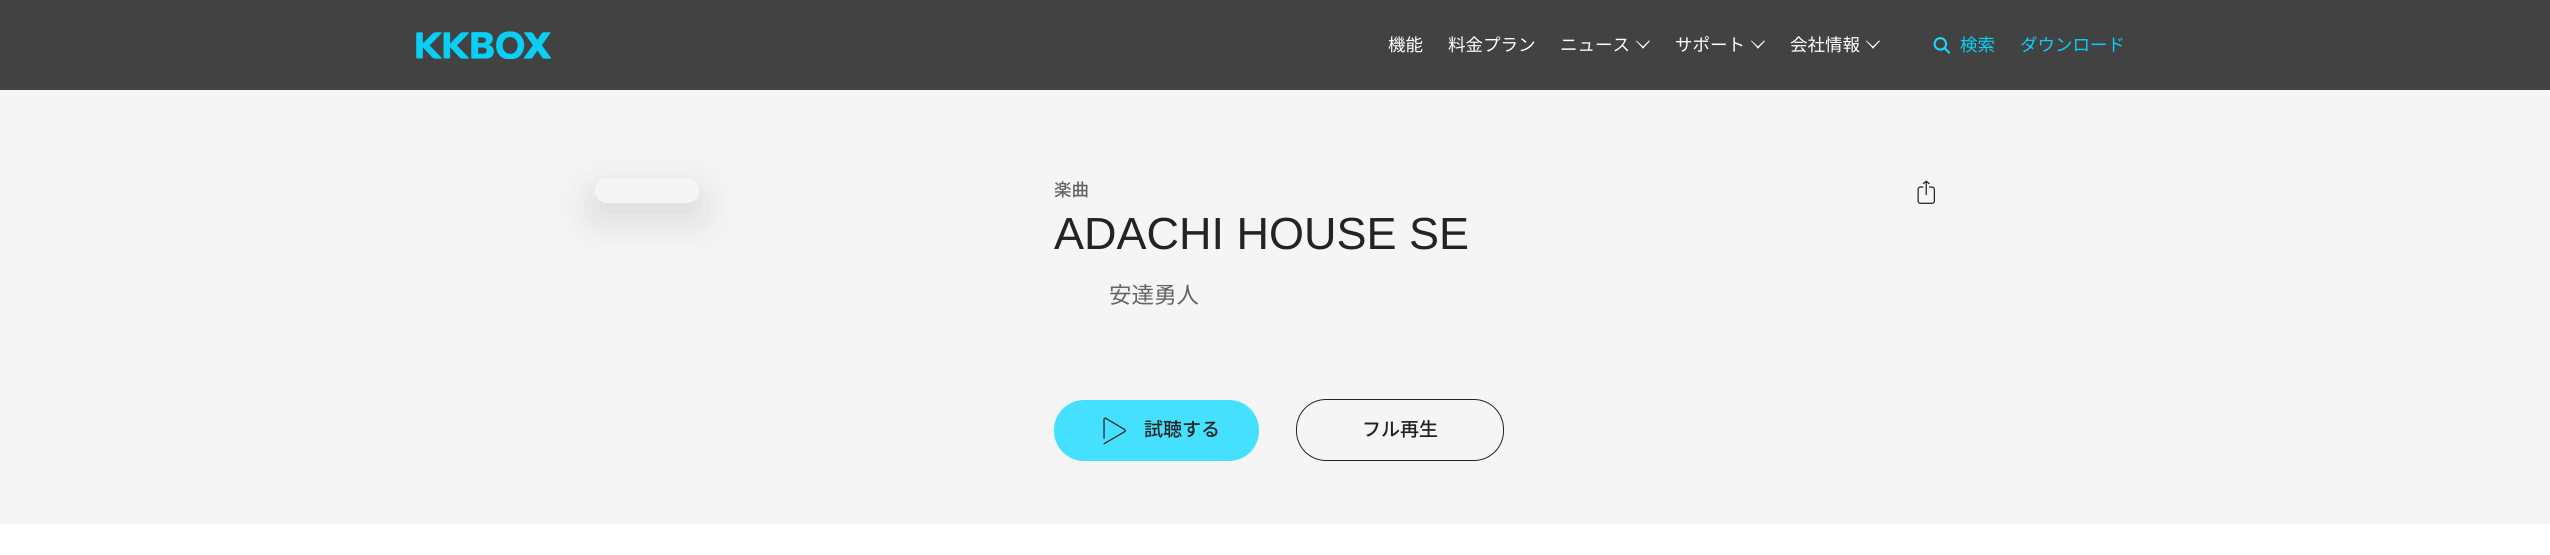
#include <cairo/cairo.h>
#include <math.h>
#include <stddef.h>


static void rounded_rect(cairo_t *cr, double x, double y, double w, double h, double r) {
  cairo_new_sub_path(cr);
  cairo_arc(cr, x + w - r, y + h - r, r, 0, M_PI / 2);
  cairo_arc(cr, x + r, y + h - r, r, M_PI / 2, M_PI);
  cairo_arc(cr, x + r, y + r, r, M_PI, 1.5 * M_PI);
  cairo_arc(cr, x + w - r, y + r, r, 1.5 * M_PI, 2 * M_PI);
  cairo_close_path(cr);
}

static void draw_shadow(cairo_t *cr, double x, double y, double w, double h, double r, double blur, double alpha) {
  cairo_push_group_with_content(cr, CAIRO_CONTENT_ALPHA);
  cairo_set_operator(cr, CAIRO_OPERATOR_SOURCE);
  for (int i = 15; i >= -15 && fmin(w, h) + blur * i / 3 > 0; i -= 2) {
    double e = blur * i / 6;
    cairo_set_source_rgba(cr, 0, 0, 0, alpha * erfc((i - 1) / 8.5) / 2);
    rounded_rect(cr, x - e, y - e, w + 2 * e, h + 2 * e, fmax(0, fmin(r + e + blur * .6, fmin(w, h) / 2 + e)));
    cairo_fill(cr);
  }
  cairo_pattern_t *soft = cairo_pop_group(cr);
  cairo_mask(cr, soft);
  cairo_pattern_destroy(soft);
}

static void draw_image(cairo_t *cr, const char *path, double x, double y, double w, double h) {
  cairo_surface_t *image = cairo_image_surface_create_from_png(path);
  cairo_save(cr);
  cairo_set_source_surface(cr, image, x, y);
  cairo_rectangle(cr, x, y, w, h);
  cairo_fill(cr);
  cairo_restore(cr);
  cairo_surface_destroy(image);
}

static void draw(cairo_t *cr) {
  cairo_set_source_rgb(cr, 1, 1, 1);
  cairo_paint(cr);
  cairo_set_source_rgb(cr, 66 / 255.0, 66 / 255.0, 66 / 255.0);
  cairo_rectangle(cr, 0, 0, 2550, 90);
  cairo_fill(cr);
  draw_image(cr, "images/1.png", 416, 31, 135, 28);
  cairo_set_source_rgb(cr, 1, 1, 1);
  cairo_new_path(cr);
  cairo_move_to(cr, 1649, 40.5);
  cairo_line_to(cr, 1650, 41);
  cairo_line_to(cr, 1643, 48.5);
  cairo_line_to(cr, 1642, 47.5);
  cairo_close_path(cr);
  cairo_fill(cr);
  cairo_new_path(cr);
  cairo_move_to(cr, 1636.5, 40.5);
  cairo_line_to(cr, 1644, 47.5);
  cairo_line_to(cr, 1643, 48.5);
  cairo_line_to(cr, 1636, 41);
  cairo_close_path(cr);
  cairo_fill(cr);
  cairo_new_path(cr);
  cairo_move_to(cr, 1764, 40.5);
  cairo_line_to(cr, 1765, 41);
  cairo_line_to(cr, 1758, 48.5);
  cairo_line_to(cr, 1757, 47.5);
  cairo_close_path(cr);
  cairo_fill(cr);
  cairo_new_path(cr);
  cairo_move_to(cr, 1751.5, 40.5);
  cairo_line_to(cr, 1759, 47.5);
  cairo_line_to(cr, 1758, 48.5);
  cairo_line_to(cr, 1751, 41);
  cairo_close_path(cr);
  cairo_fill(cr);
  cairo_new_path(cr);
  cairo_move_to(cr, 1879, 40.5);
  cairo_line_to(cr, 1880, 41);
  cairo_line_to(cr, 1873, 48.5);
  cairo_line_to(cr, 1872, 47.5);
  cairo_close_path(cr);
  cairo_fill(cr);
  cairo_new_path(cr);
  cairo_move_to(cr, 1866.5, 40.5);
  cairo_line_to(cr, 1874, 47.5);
  cairo_line_to(cr, 1873, 48.5);
  cairo_line_to(cr, 1866, 41);
  cairo_close_path(cr);
  cairo_fill(cr);
  draw_image(cr, "images/2.png", 1933, 37, 18, 17);
  cairo_set_source_rgb(cr, 245 / 255.0, 245 / 255.0, 245 / 255.0);
  cairo_rectangle(cr, 0, 90, 2550, 434);
  cairo_fill(cr);
  cairo_save(cr);
  cairo_set_fill_rule(cr, CAIRO_FILL_RULE_EVEN_ODD);
  cairo_new_path(cr);
  cairo_move_to(cr, 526, 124);
  cairo_line_to(cr, 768, 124);
  cairo_line_to(cr, 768, 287);
  cairo_line_to(cr, 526, 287);
  cairo_close_path(cr);
  cairo_move_to(cr, 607.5, 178);
  cairo_line_to(cr, 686.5, 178);
  cairo_curve_to(cr, 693.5, 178, 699, 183.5, 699, 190.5);
  cairo_curve_to(cr, 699, 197.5, 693.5, 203, 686.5, 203);
  cairo_line_to(cr, 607.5, 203);
  cairo_curve_to(cr, 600.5, 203, 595, 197.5, 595, 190.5);
  cairo_curve_to(cr, 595, 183.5, 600.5, 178, 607.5, 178);
  cairo_close_path(cr);
  cairo_clip(cr);
  cairo_set_source_rgb(cr, 0, 0, 0);
  draw_shadow(cr, 595, 193, 104, 25, 12.5, 22.5, 0.12);
  cairo_restore(cr);
  draw_image(cr, "images/3.png", 1917, 180, 18, 24);
  cairo_set_source_rgb(cr, 70 / 255.0, 224 / 255.0, 1);
  rounded_rect(cr, 1054, 400, 205, 61, 30);
  cairo_fill(cr);
  draw_image(cr, "images/4.png", 1103, 417, 23, 28);
  rounded_rect(cr, 1296.5, 399.5, 207, 61, 29.5);
  cairo_set_source_rgb(cr, 35 / 255.0, 35 / 255.0, 35 / 255.0);
  cairo_set_line_width(cr, 1);
  cairo_stroke(cr);
  cairo_select_font_face(cr, "Noto Sans JP", CAIRO_FONT_SLANT_NORMAL, CAIRO_FONT_WEIGHT_NORMAL);
  cairo_set_font_size(cr, 17.5);
  cairo_set_source_rgb(cr, 1, 1, 1);
  cairo_move_to(cr, 1388, 51);
  cairo_show_text(cr, "機能");
  cairo_move_to(cr, 1448, 51);
  cairo_show_text(cr, "料金プラン");
  cairo_move_to(cr, 1560, 51);
  cairo_show_text(cr, "ニュース");
  cairo_move_to(cr, 1675, 51);
  cairo_show_text(cr, "サポート");
  cairo_move_to(cr, 1790, 51);
  cairo_show_text(cr, "会社情報");
  cairo_set_source_rgb(cr, 9 / 255.0, 206 / 255.0, 246 / 255.0);
  cairo_move_to(cr, 1960, 51);
  cairo_show_text(cr, "検索");
  cairo_move_to(cr, 2020, 51);
  cairo_show_text(cr, "ダウンロード");
  cairo_select_font_face(cr, "Noto Sans JP Medium", CAIRO_FONT_SLANT_NORMAL, CAIRO_FONT_WEIGHT_NORMAL);
  cairo_set_source_rgb(cr, 100 / 255.0, 100 / 255.0, 100 / 255.0);
  cairo_move_to(cr, 1054, 196);
  cairo_show_text(cr, "楽曲");
  cairo_select_font_face(cr, "Liberation Sans", CAIRO_FONT_SLANT_NORMAL, CAIRO_FONT_WEIGHT_NORMAL);
  cairo_set_font_size(cr, 45);
  cairo_set_source_rgb(cr, 35 / 255.0, 35 / 255.0, 35 / 255.0);
  cairo_move_to(cr, 1054, 249);
  cairo_show_text(cr, "ADACHI HOUSE SE");
  cairo_select_font_face(cr, "Noto Sans JP", CAIRO_FONT_SLANT_NORMAL, CAIRO_FONT_WEIGHT_NORMAL);
  cairo_set_font_size(cr, 22.5);
  cairo_set_source_rgb(cr, 100 / 255.0, 100 / 255.0, 100 / 255.0);
  cairo_move_to(cr, 1109, 303);
  cairo_show_text(cr, "安達勇人");
  cairo_select_font_face(cr, "Noto Sans JP Medium", CAIRO_FONT_SLANT_NORMAL, CAIRO_FONT_WEIGHT_NORMAL);
  cairo_set_font_size(cr, 19);
  cairo_set_source_rgb(cr, 35 / 255.0, 35 / 255.0, 35 / 255.0);
  cairo_move_to(cr, 1144, 436);
  cairo_show_text(cr, "試聴する");
  cairo_move_to(cr, 1362, 436);
  cairo_show_text(cr, "フル再生");
}

int main(void) {
  cairo_surface_t *surface = cairo_image_surface_create(CAIRO_FORMAT_RGB24, 2550, 555);
  cairo_t *cr = cairo_create(surface);
  cairo_font_options_t *options = cairo_font_options_create();
  cairo_font_options_set_hint_metrics(options, CAIRO_HINT_METRICS_OFF);
  cairo_font_options_set_hint_style(options, CAIRO_HINT_STYLE_NONE);
  cairo_set_font_options(cr, options);
  cairo_set_miter_limit(cr, 4);
  draw(cr);
  cairo_surface_write_to_png(surface, "out.png");
  cairo_font_options_destroy(options);
  cairo_destroy(cr);
  cairo_surface_destroy(surface);
  return 0;
}
